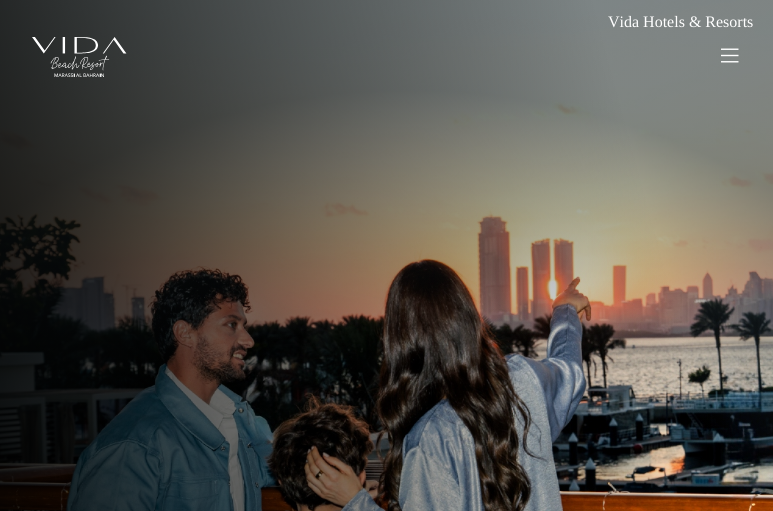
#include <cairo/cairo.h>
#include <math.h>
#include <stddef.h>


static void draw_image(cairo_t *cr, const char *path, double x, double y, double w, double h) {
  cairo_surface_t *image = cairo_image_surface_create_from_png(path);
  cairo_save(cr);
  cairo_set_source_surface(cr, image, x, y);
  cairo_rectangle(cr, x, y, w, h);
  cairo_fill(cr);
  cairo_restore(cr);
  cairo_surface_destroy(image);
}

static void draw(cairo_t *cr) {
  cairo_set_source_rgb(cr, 1, 1, 1);
  cairo_paint(cr);
  draw_image(cr, "images/1.png", 0, 0, 773, 511);
  draw_image(cr, "images/2.png", 32, 37, 95, 40);
  draw_image(cr, "images/3.png", 721, 48, 18, 15);
  cairo_select_font_face(cr, "Liberation Serif", CAIRO_FONT_SLANT_NORMAL, CAIRO_FONT_WEIGHT_NORMAL);
  cairo_set_font_size(cr, 16);
  cairo_set_source_rgb(cr, 1, 1, 1);
  cairo_move_to(cr, 608, 27);
  cairo_show_text(cr, "Vida Hotels & Resorts");
}

int main(void) {
  cairo_surface_t *surface = cairo_image_surface_create(CAIRO_FORMAT_RGB24, 773, 511);
  cairo_t *cr = cairo_create(surface);
  cairo_font_options_t *options = cairo_font_options_create();
  cairo_font_options_set_hint_metrics(options, CAIRO_HINT_METRICS_OFF);
  cairo_font_options_set_hint_style(options, CAIRO_HINT_STYLE_NONE);
  cairo_set_font_options(cr, options);
  cairo_set_miter_limit(cr, 4);
  draw(cr);
  cairo_surface_write_to_png(surface, "out.png");
  cairo_font_options_destroy(options);
  cairo_destroy(cr);
  cairo_surface_destroy(surface);
  return 0;
}
